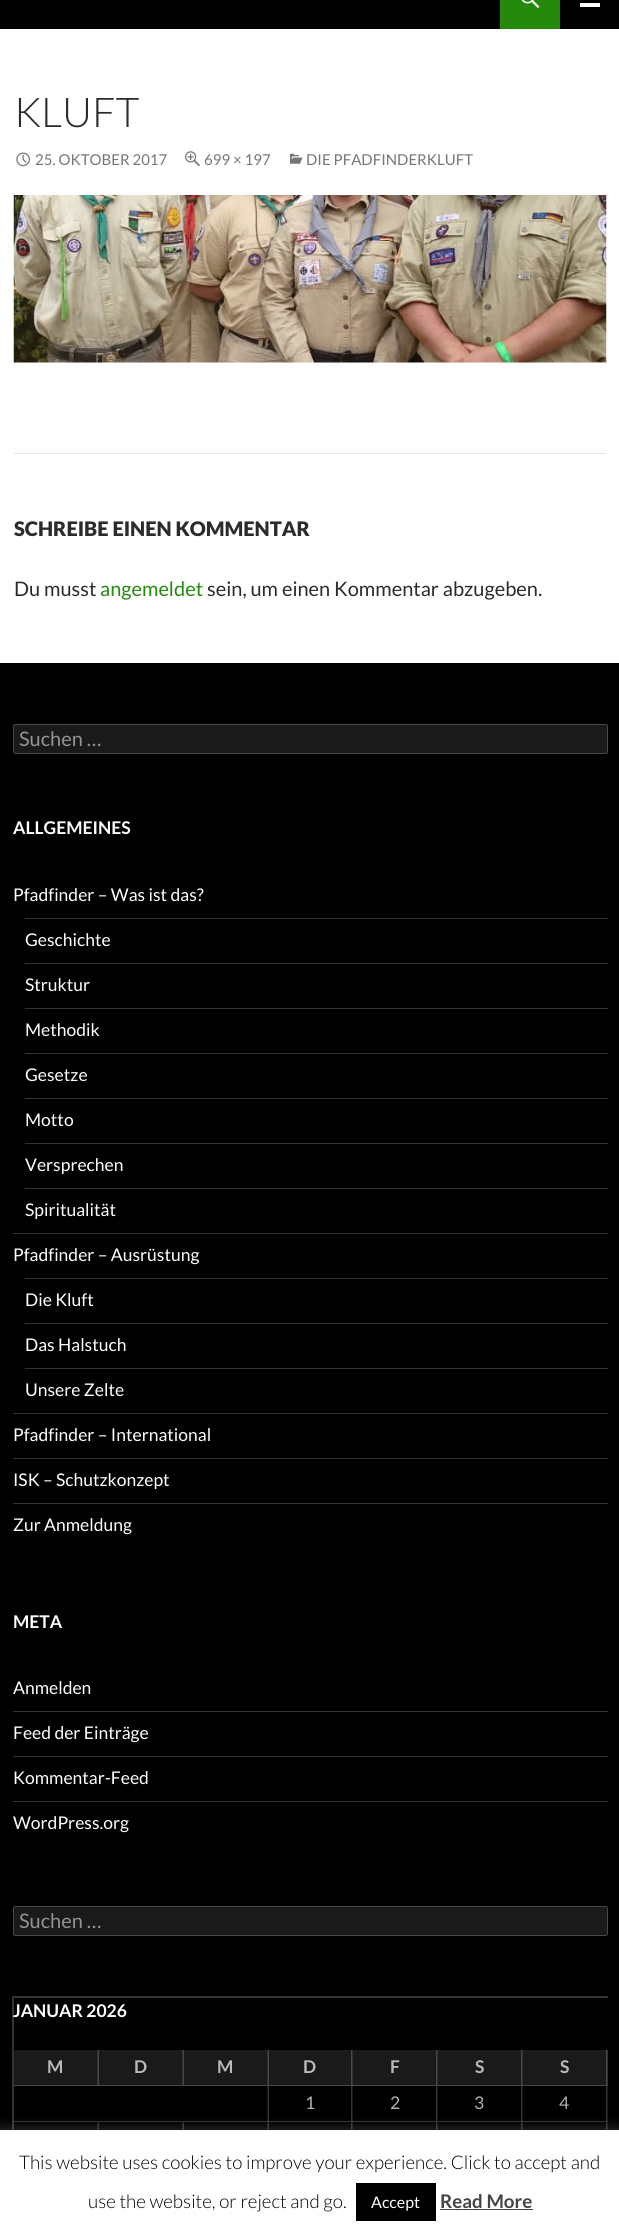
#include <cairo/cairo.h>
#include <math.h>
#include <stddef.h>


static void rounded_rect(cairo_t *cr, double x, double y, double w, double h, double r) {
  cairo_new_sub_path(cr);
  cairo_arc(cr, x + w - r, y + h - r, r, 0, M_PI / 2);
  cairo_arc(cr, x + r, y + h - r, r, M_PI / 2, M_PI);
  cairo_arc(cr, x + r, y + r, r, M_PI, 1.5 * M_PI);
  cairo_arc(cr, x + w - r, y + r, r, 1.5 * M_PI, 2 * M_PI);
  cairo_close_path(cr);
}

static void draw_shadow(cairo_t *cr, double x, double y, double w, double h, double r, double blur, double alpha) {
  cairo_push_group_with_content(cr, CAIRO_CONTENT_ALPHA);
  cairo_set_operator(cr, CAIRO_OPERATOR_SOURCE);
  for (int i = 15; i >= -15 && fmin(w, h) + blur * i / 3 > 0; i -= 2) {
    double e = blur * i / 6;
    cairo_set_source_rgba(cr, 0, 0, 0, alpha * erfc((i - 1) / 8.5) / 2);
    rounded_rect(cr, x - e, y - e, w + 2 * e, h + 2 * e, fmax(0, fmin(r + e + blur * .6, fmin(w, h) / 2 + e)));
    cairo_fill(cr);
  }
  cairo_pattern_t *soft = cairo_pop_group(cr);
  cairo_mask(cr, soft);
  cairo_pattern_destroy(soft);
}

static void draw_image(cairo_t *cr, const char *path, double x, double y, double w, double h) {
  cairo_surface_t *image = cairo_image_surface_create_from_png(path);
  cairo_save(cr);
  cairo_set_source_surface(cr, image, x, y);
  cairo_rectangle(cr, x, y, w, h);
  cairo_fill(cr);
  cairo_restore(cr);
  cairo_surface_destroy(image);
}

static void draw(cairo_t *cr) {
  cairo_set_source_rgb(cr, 1, 1, 1);
  cairo_paint(cr);
  cairo_set_source_rgb(cr, 0, 0, 0);
  cairo_rectangle(cr, 0, 0, 619, 29);
  cairo_fill(cr);
  cairo_set_source_rgb(cr, 36 / 255.0, 137 / 255.0, 13 / 255.0);
  cairo_rectangle(cr, 500, 0, 60, 29);
  cairo_fill(cr);
  draw_image(cr, "images/1.png", 521, 0, 19, 8);
  cairo_set_source_rgb(cr, 1, 1, 1);
  cairo_rectangle(cr, 580, 3, 20, 4);
  cairo_fill(cr);
  draw_image(cr, "images/2.png", 16, 152, 14, 15);
  draw_image(cr, "images/3.png", 185, 151, 15, 16);
  draw_image(cr, "images/4.png", 290, 153, 13, 11);
  draw_image(cr, "images/5.png", 13, 195, 594, 168);
  cairo_set_source_rgb(cr, 230 / 255.0, 230 / 255.0, 230 / 255.0);
  cairo_rectangle(cr, 14, 453, 592, 1);
  cairo_fill(cr);
  cairo_set_source_rgb(cr, 0, 0, 0);
  cairo_rectangle(cr, 0, 663, 619, 1467);
  cairo_fill(cr);
  cairo_set_source_rgb(cr, 26 / 255.0, 26 / 255.0, 26 / 255.0);
  rounded_rect(cr, 13, 724, 595, 30, 2.5);
  cairo_fill(cr);
  rounded_rect(cr, 13.5, 724.5, 594, 29, 2);
  cairo_set_source_rgba(cr, 1, 1, 1, 0.2);
  cairo_set_line_width(cr, 1);
  cairo_stroke(cr);
  cairo_set_source_rgb(cr, 51 / 255.0, 51 / 255.0, 51 / 255.0);
  cairo_rectangle(cr, 25, 918, 583, 1);
  cairo_fill(cr);
  cairo_rectangle(cr, 25, 963, 583, 1);
  cairo_fill(cr);
  cairo_rectangle(cr, 25, 1008, 583, 1);
  cairo_fill(cr);
  cairo_rectangle(cr, 25, 1053, 583, 1);
  cairo_fill(cr);
  cairo_rectangle(cr, 25, 1098, 583, 1);
  cairo_fill(cr);
  cairo_rectangle(cr, 25, 1143, 583, 1);
  cairo_fill(cr);
  cairo_rectangle(cr, 25, 1188, 583, 1);
  cairo_fill(cr);
  cairo_rectangle(cr, 13, 1233, 595, 1);
  cairo_fill(cr);
  cairo_rectangle(cr, 25, 1278, 583, 1);
  cairo_fill(cr);
  cairo_rectangle(cr, 25, 1323, 583, 1);
  cairo_fill(cr);
  cairo_rectangle(cr, 25, 1368, 583, 1);
  cairo_fill(cr);
  cairo_rectangle(cr, 13, 1413, 595, 1);
  cairo_fill(cr);
  cairo_rectangle(cr, 13, 1458, 595, 1);
  cairo_fill(cr);
  cairo_rectangle(cr, 13, 1503, 595, 1);
  cairo_fill(cr);
  cairo_rectangle(cr, 13, 1711, 595, 1);
  cairo_fill(cr);
  cairo_rectangle(cr, 13, 1756, 595, 1);
  cairo_fill(cr);
  cairo_rectangle(cr, 13, 1801, 595, 1);
  cairo_fill(cr);
  cairo_set_source_rgb(cr, 26 / 255.0, 26 / 255.0, 26 / 255.0);
  rounded_rect(cr, 13, 1906, 595, 30, 2.5);
  cairo_fill(cr);
  rounded_rect(cr, 13.5, 1906.5, 594, 29, 2);
  cairo_set_source_rgba(cr, 1, 1, 1, 0.2);
  cairo_stroke(cr);
  cairo_set_source_rgb(cr, 51 / 255.0, 51 / 255.0, 51 / 255.0);
  cairo_new_path(cr);
  cairo_move_to(cr, 12, 1996);
  cairo_line_to(cr, 608, 1996);
  cairo_line_to(cr, 608, 1998);
  cairo_line_to(cr, 14, 1998);
  cairo_close_path(cr);
  cairo_fill(cr);
  cairo_set_source_rgba(cr, 1, 1, 1, 0.2);
  cairo_new_path(cr);
  cairo_move_to(cr, 12, 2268);
  cairo_line_to(cr, 12, 1996);
  cairo_line_to(cr, 14, 1998);
  cairo_line_to(cr, 14, 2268);
  cairo_close_path(cr);
  cairo_fill(cr);
  cairo_set_source_rgb(cr, 26 / 255.0, 26 / 255.0, 26 / 255.0);
  cairo_rectangle(cr, 14, 2050, 594, 36);
  cairo_fill(cr);
  cairo_set_source_rgb(cr, 72 / 255.0, 72 / 255.0, 72 / 255.0);
  cairo_new_path(cr);
  cairo_move_to(cr, 99, 2050);
  cairo_line_to(cr, 99, 2086);
  cairo_line_to(cr, 97.5, 2085);
  cairo_line_to(cr, 97.5, 2050);
  cairo_close_path(cr);
  cairo_fill(cr);
  cairo_set_source_rgba(cr, 1, 1, 1, 0.2);
  cairo_new_path(cr);
  cairo_move_to(cr, 99, 2086);
  cairo_line_to(cr, 14, 2086);
  cairo_line_to(cr, 14, 2085);
  cairo_line_to(cr, 98, 2085);
  cairo_close_path(cr);
  cairo_fill(cr);
  cairo_set_source_rgb(cr, 72 / 255.0, 72 / 255.0, 72 / 255.0);
  cairo_new_path(cr);
  cairo_move_to(cr, 184, 2050);
  cairo_line_to(cr, 184, 2086);
  cairo_line_to(cr, 182.5, 2085);
  cairo_line_to(cr, 182.5, 2050);
  cairo_close_path(cr);
  cairo_fill(cr);
  cairo_set_source_rgba(cr, 1, 1, 1, 0.2);
  cairo_new_path(cr);
  cairo_move_to(cr, 184, 2086);
  cairo_line_to(cr, 99, 2086);
  cairo_line_to(cr, 99, 2085);
  cairo_line_to(cr, 182, 2085);
  cairo_close_path(cr);
  cairo_fill(cr);
  cairo_set_source_rgb(cr, 72 / 255.0, 72 / 255.0, 72 / 255.0);
  cairo_new_path(cr);
  cairo_move_to(cr, 269, 2050);
  cairo_line_to(cr, 269, 2086);
  cairo_line_to(cr, 267.5, 2085);
  cairo_line_to(cr, 267.5, 2050);
  cairo_close_path(cr);
  cairo_fill(cr);
  cairo_set_source_rgba(cr, 1, 1, 1, 0.2);
  cairo_new_path(cr);
  cairo_move_to(cr, 269, 2086);
  cairo_line_to(cr, 184, 2086);
  cairo_line_to(cr, 184, 2085);
  cairo_line_to(cr, 268, 2085);
  cairo_close_path(cr);
  cairo_fill(cr);
  cairo_set_source_rgb(cr, 72 / 255.0, 72 / 255.0, 72 / 255.0);
  cairo_new_path(cr);
  cairo_move_to(cr, 352.5, 2050);
  cairo_line_to(cr, 352.5, 2086);
  cairo_line_to(cr, 351, 2085);
  cairo_line_to(cr, 351, 2050);
  cairo_close_path(cr);
  cairo_fill(cr);
  cairo_set_source_rgba(cr, 1, 1, 1, 0.2);
  cairo_new_path(cr);
  cairo_move_to(cr, 352, 2086);
  cairo_line_to(cr, 269, 2086);
  cairo_line_to(cr, 269, 2085);
  cairo_line_to(cr, 351, 2085);
  cairo_close_path(cr);
  cairo_fill(cr);
  cairo_set_source_rgb(cr, 72 / 255.0, 72 / 255.0, 72 / 255.0);
  cairo_new_path(cr);
  cairo_move_to(cr, 437.5, 2050);
  cairo_line_to(cr, 437.5, 2086);
  cairo_line_to(cr, 436, 2085);
  cairo_line_to(cr, 436, 2050);
  cairo_close_path(cr);
  cairo_fill(cr);
  cairo_set_source_rgba(cr, 1, 1, 1, 0.2);
  cairo_new_path(cr);
  cairo_move_to(cr, 438, 2086);
  cairo_line_to(cr, 352, 2086);
  cairo_line_to(cr, 352, 2085);
  cairo_line_to(cr, 436, 2085);
  cairo_close_path(cr);
  cairo_fill(cr);
  cairo_set_source_rgb(cr, 72 / 255.0, 72 / 255.0, 72 / 255.0);
  cairo_new_path(cr);
  cairo_move_to(cr, 522.5, 2050);
  cairo_line_to(cr, 522.5, 2086);
  cairo_line_to(cr, 521, 2085);
  cairo_line_to(cr, 521, 2050);
  cairo_close_path(cr);
  cairo_fill(cr);
  cairo_set_source_rgba(cr, 1, 1, 1, 0.2);
  cairo_new_path(cr);
  cairo_move_to(cr, 522, 2086);
  cairo_line_to(cr, 438, 2086);
  cairo_line_to(cr, 438, 2085);
  cairo_line_to(cr, 521, 2085);
  cairo_close_path(cr);
  cairo_fill(cr);
  cairo_set_source_rgb(cr, 72 / 255.0, 72 / 255.0, 72 / 255.0);
  cairo_new_path(cr);
  cairo_move_to(cr, 607.5, 2050);
  cairo_line_to(cr, 607.5, 2086);
  cairo_line_to(cr, 606, 2085);
  cairo_line_to(cr, 606, 2050);
  cairo_close_path(cr);
  cairo_fill(cr);
  cairo_set_source_rgba(cr, 1, 1, 1, 0.2);
  cairo_new_path(cr);
  cairo_move_to(cr, 608, 2086);
  cairo_line_to(cr, 522, 2086);
  cairo_line_to(cr, 522, 2085);
  cairo_line_to(cr, 606, 2085);
  cairo_close_path(cr);
  cairo_fill(cr);
  cairo_set_source_rgb(cr, 51 / 255.0, 51 / 255.0, 51 / 255.0);
  cairo_new_path(cr);
  cairo_move_to(cr, 269, 2086);
  cairo_line_to(cr, 269, 2122.5);
  cairo_line_to(cr, 267.5, 2121);
  cairo_line_to(cr, 267.5, 2086);
  cairo_close_path(cr);
  cairo_fill(cr);
  cairo_set_source_rgba(cr, 1, 1, 1, 0.2);
  cairo_new_path(cr);
  cairo_move_to(cr, 269, 2122);
  cairo_line_to(cr, 14, 2122);
  cairo_line_to(cr, 14, 2121);
  cairo_line_to(cr, 268, 2121);
  cairo_close_path(cr);
  cairo_fill(cr);
  cairo_set_source_rgb(cr, 51 / 255.0, 51 / 255.0, 51 / 255.0);
  cairo_new_path(cr);
  cairo_move_to(cr, 352.5, 2086);
  cairo_line_to(cr, 352.5, 2122.5);
  cairo_line_to(cr, 351, 2121);
  cairo_line_to(cr, 351, 2086);
  cairo_close_path(cr);
  cairo_fill(cr);
  cairo_set_source_rgba(cr, 1, 1, 1, 0.2);
  cairo_new_path(cr);
  cairo_move_to(cr, 352, 2122);
  cairo_line_to(cr, 269, 2122);
  cairo_line_to(cr, 269, 2121);
  cairo_line_to(cr, 351, 2121);
  cairo_close_path(cr);
  cairo_fill(cr);
  cairo_set_source_rgb(cr, 51 / 255.0, 51 / 255.0, 51 / 255.0);
  cairo_new_path(cr);
  cairo_move_to(cr, 437.5, 2086);
  cairo_line_to(cr, 437.5, 2122.5);
  cairo_line_to(cr, 436, 2121);
  cairo_line_to(cr, 436, 2086);
  cairo_close_path(cr);
  cairo_fill(cr);
  cairo_set_source_rgba(cr, 1, 1, 1, 0.2);
  cairo_new_path(cr);
  cairo_move_to(cr, 438, 2122);
  cairo_line_to(cr, 352, 2122);
  cairo_line_to(cr, 352, 2121);
  cairo_line_to(cr, 436, 2121);
  cairo_close_path(cr);
  cairo_fill(cr);
  cairo_set_source_rgb(cr, 51 / 255.0, 51 / 255.0, 51 / 255.0);
  cairo_new_path(cr);
  cairo_move_to(cr, 522.5, 2086);
  cairo_line_to(cr, 522.5, 2122.5);
  cairo_line_to(cr, 521, 2121);
  cairo_line_to(cr, 521, 2086);
  cairo_close_path(cr);
  cairo_fill(cr);
  cairo_set_source_rgba(cr, 1, 1, 1, 0.2);
  cairo_new_path(cr);
  cairo_move_to(cr, 522, 2122);
  cairo_line_to(cr, 438, 2122);
  cairo_line_to(cr, 438, 2121);
  cairo_line_to(cr, 521, 2121);
  cairo_close_path(cr);
  cairo_fill(cr);
  cairo_set_source_rgb(cr, 51 / 255.0, 51 / 255.0, 51 / 255.0);
  cairo_new_path(cr);
  cairo_move_to(cr, 607.5, 2086);
  cairo_line_to(cr, 607.5, 2122.5);
  cairo_line_to(cr, 606, 2121);
  cairo_line_to(cr, 606, 2086);
  cairo_close_path(cr);
  cairo_fill(cr);
  cairo_set_source_rgba(cr, 1, 1, 1, 0.2);
  cairo_new_path(cr);
  cairo_move_to(cr, 608, 2122);
  cairo_line_to(cr, 522, 2122);
  cairo_line_to(cr, 522, 2121);
  cairo_line_to(cr, 606, 2121);
  cairo_close_path(cr);
  cairo_fill(cr);
  cairo_set_source_rgb(cr, 51 / 255.0, 51 / 255.0, 51 / 255.0);
  cairo_new_path(cr);
  cairo_move_to(cr, 99, 2122.5);
  cairo_line_to(cr, 99, 2159);
  cairo_line_to(cr, 97.5, 2157.5);
  cairo_line_to(cr, 97.5, 2122.5);
  cairo_close_path(cr);
  cairo_fill(cr);
  cairo_new_path(cr);
  cairo_move_to(cr, 184, 2122.5);
  cairo_line_to(cr, 184, 2159);
  cairo_line_to(cr, 182.5, 2157.5);
  cairo_line_to(cr, 182.5, 2122.5);
  cairo_close_path(cr);
  cairo_fill(cr);
  cairo_new_path(cr);
  cairo_move_to(cr, 269, 2122.5);
  cairo_line_to(cr, 269, 2159);
  cairo_line_to(cr, 267.5, 2157.5);
  cairo_line_to(cr, 267.5, 2122.5);
  cairo_close_path(cr);
  cairo_fill(cr);
  cairo_new_path(cr);
  cairo_move_to(cr, 352.5, 2122.5);
  cairo_line_to(cr, 352.5, 2159);
  cairo_line_to(cr, 351, 2157.5);
  cairo_line_to(cr, 351, 2122.5);
  cairo_close_path(cr);
  cairo_fill(cr);
  cairo_new_path(cr);
  cairo_move_to(cr, 437.5, 2122.5);
  cairo_line_to(cr, 437.5, 2159);
  cairo_line_to(cr, 436, 2157.5);
  cairo_line_to(cr, 436, 2122.5);
  cairo_close_path(cr);
  cairo_fill(cr);
  cairo_new_path(cr);
  cairo_move_to(cr, 522.5, 2122.5);
  cairo_line_to(cr, 522.5, 2159);
  cairo_line_to(cr, 521, 2157.5);
  cairo_line_to(cr, 521, 2122.5);
  cairo_close_path(cr);
  cairo_fill(cr);
  cairo_new_path(cr);
  cairo_move_to(cr, 607.5, 2122.5);
  cairo_line_to(cr, 607.5, 2159);
  cairo_line_to(cr, 606, 2157.5);
  cairo_line_to(cr, 606, 2122.5);
  cairo_close_path(cr);
  cairo_fill(cr);
  cairo_set_source_rgb(cr, 172 / 255.0, 171 / 255.0, 171 / 255.0);
  draw_shadow(cr, 0, 2129, 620, 106, 0, 6, 0.3);
  cairo_set_source_rgb(cr, 1, 1, 1);
  cairo_rectangle(cr, 0, 2130, 619, 106);
  cairo_fill(cr);
  cairo_set_source_rgb(cr, 0, 0, 0);
  cairo_rectangle(cr, 356, 2183, 80, 38);
  cairo_fill(cr);
  cairo_set_source_rgb(cr, 68 / 255.0, 68 / 255.0, 68 / 255.0);
  cairo_rectangle(cr, 440, 2209, 93, 1);
  cairo_fill(cr);
  cairo_select_font_face(cr, "Lato Light", CAIRO_FONT_SLANT_NORMAL, CAIRO_FONT_WEIGHT_NORMAL);
  cairo_set_font_size(cr, 41);
  cairo_set_source_rgb(cr, 43 / 255.0, 43 / 255.0, 43 / 255.0);
  cairo_move_to(cr, 14, 127);
  cairo_show_text(cr, "KLUFT");
  cairo_select_font_face(cr, "Lato", CAIRO_FONT_SLANT_NORMAL, CAIRO_FONT_WEIGHT_NORMAL);
  cairo_set_font_size(cr, 15);
  cairo_set_source_rgb(cr, 118 / 255.0, 118 / 255.0, 118 / 255.0);
  cairo_move_to(cr, 35, 165);
  cairo_show_text(cr, "25. OKTOBER 2017");
  cairo_move_to(cr, 204, 165);
  cairo_show_text(cr, "699 × 197");
  cairo_move_to(cr, 306, 165);
  cairo_show_text(cr, "DIE PFADFINDERKLUFT");
  cairo_select_font_face(cr, "Lato Black", CAIRO_FONT_SLANT_NORMAL, CAIRO_FONT_WEIGHT_NORMAL);
  cairo_set_font_size(cr, 20);
  cairo_set_source_rgb(cr, 43 / 255.0, 43 / 255.0, 43 / 255.0);
  cairo_move_to(cr, 14, 536);
  cairo_show_text(cr, "SCHREIBE EINEN KOMMENTAR");
  cairo_select_font_face(cr, "Lato", CAIRO_FONT_SLANT_NORMAL, CAIRO_FONT_WEIGHT_NORMAL);
  cairo_move_to(cr, 14, 596);
  cairo_show_text(cr, "Du musst");
  cairo_set_source_rgb(cr, 36 / 255.0, 137 / 255.0, 13 / 255.0);
  cairo_move_to(cr, 100, 596);
  cairo_show_text(cr, "angemeldet");
  cairo_set_source_rgb(cr, 43 / 255.0, 43 / 255.0, 43 / 255.0);
  cairo_move_to(cr, 207, 596);
  cairo_show_text(cr, "sein, um einen Kommentar abzugeben.");
  cairo_set_source_rgb(cr, 147 / 255.0, 147 / 255.0, 147 / 255.0);
  cairo_move_to(cr, 19, 746);
  cairo_show_text(cr, "Suchen …");
  cairo_select_font_face(cr, "Lato", CAIRO_FONT_SLANT_NORMAL, CAIRO_FONT_WEIGHT_BOLD);
  cairo_set_font_size(cr, 17.5);
  cairo_set_source_rgb(cr, 1, 1, 1);
  cairo_move_to(cr, 13, 834);
  cairo_show_text(cr, "ALLGEMEINES");
  cairo_select_font_face(cr, "Lato", CAIRO_FONT_SLANT_NORMAL, CAIRO_FONT_WEIGHT_NORMAL);
  cairo_move_to(cr, 13, 901);
  cairo_show_text(cr, "Pfadfinder – Was ist das?");
  cairo_move_to(cr, 25, 946);
  cairo_show_text(cr, "Geschichte");
  cairo_move_to(cr, 25, 991);
  cairo_show_text(cr, "Struktur");
  cairo_move_to(cr, 25, 1036);
  cairo_show_text(cr, "Methodik");
  cairo_move_to(cr, 25, 1081);
  cairo_show_text(cr, "Gesetze");
  cairo_move_to(cr, 25, 1126);
  cairo_show_text(cr, "Motto");
  cairo_move_to(cr, 25, 1171);
  cairo_show_text(cr, "Versprechen");
  cairo_move_to(cr, 25, 1216);
  cairo_show_text(cr, "Spiritualität");
  cairo_move_to(cr, 13, 1261);
  cairo_show_text(cr, "Pfadfinder – Ausrüstung");
  cairo_move_to(cr, 25, 1306);
  cairo_show_text(cr, "Die Kluft");
  cairo_move_to(cr, 25, 1351);
  cairo_show_text(cr, "Das Halstuch");
  cairo_move_to(cr, 25, 1396);
  cairo_show_text(cr, "Unsere Zelte");
  cairo_move_to(cr, 13, 1441);
  cairo_show_text(cr, "Pfadfinder – International");
  cairo_move_to(cr, 13, 1486);
  cairo_show_text(cr, "ISK – Schutzkonzept");
  cairo_move_to(cr, 13, 1531);
  cairo_show_text(cr, "Zur Anmeldung");
  cairo_select_font_face(cr, "Lato", CAIRO_FONT_SLANT_NORMAL, CAIRO_FONT_WEIGHT_BOLD);
  cairo_move_to(cr, 13, 1628);
  cairo_show_text(cr, "META");
  cairo_select_font_face(cr, "Lato", CAIRO_FONT_SLANT_NORMAL, CAIRO_FONT_WEIGHT_NORMAL);
  cairo_move_to(cr, 13, 1694);
  cairo_show_text(cr, "Anmelden");
  cairo_move_to(cr, 13, 1739);
  cairo_show_text(cr, "Feed der Einträge");
  cairo_move_to(cr, 13, 1784);
  cairo_show_text(cr, "Kommentar-Feed");
  cairo_move_to(cr, 13, 1829);
  cairo_show_text(cr, "WordPress.org");
  cairo_set_font_size(cr, 20);
  cairo_set_source_rgb(cr, 147 / 255.0, 147 / 255.0, 147 / 255.0);
  cairo_move_to(cr, 19, 1928);
  cairo_show_text(cr, "Suchen …");
  cairo_select_font_face(cr, "Lato", CAIRO_FONT_SLANT_NORMAL, CAIRO_FONT_WEIGHT_BOLD);
  cairo_set_font_size(cr, 17.5);
  cairo_set_source_rgb(cr, 1, 1, 1);
  cairo_move_to(cr, 13, 2017);
  cairo_show_text(cr, "JANUAR 2026");
  cairo_set_source_rgb(cr, 186 / 255.0, 186 / 255.0, 186 / 255.0);
  cairo_move_to(cr, 47, 2073);
  cairo_show_text(cr, "M");
  cairo_move_to(cr, 134, 2073);
  cairo_show_text(cr, "D");
  cairo_move_to(cr, 217, 2073);
  cairo_show_text(cr, "M");
  cairo_move_to(cr, 303, 2073);
  cairo_show_text(cr, "D");
  cairo_move_to(cr, 390, 2073);
  cairo_show_text(cr, "F");
  cairo_move_to(cr, 475, 2073);
  cairo_show_text(cr, "S");
  cairo_move_to(cr, 560, 2073);
  cairo_show_text(cr, "S");
  cairo_select_font_face(cr, "Lato", CAIRO_FONT_SLANT_NORMAL, CAIRO_FONT_WEIGHT_NORMAL);
  cairo_set_source_rgb(cr, 179 / 255.0, 179 / 255.0, 179 / 255.0);
  cairo_move_to(cr, 305, 2109);
  cairo_show_text(cr, "1");
  cairo_move_to(cr, 390, 2109);
  cairo_show_text(cr, "2");
  cairo_move_to(cr, 474, 2109);
  cairo_show_text(cr, "3");
  cairo_move_to(cr, 559, 2109);
  cairo_show_text(cr, "4");
  cairo_select_font_face(cr, "Lato Light", CAIRO_FONT_SLANT_NORMAL, CAIRO_FONT_WEIGHT_NORMAL);
  cairo_set_font_size(cr, 18.75);
  cairo_set_source_rgb(cr, 0, 0, 0);
  cairo_move_to(cr, 19, 2169);
  cairo_show_text(cr, "This website uses cookies to improve your experience. Click to accept and");
  cairo_move_to(cr, 88, 2208);
  cairo_show_text(cr, "use the website, or reject and go.");
  cairo_select_font_face(cr, "Lato", CAIRO_FONT_SLANT_NORMAL, CAIRO_FONT_WEIGHT_NORMAL);
  cairo_set_font_size(cr, 16);
  cairo_set_source_rgb(cr, 1, 1, 1);
  cairo_move_to(cr, 371, 2208);
  cairo_show_text(cr, "Accept");
  cairo_select_font_face(cr, "Lato", CAIRO_FONT_SLANT_NORMAL, CAIRO_FONT_WEIGHT_BOLD);
  cairo_set_font_size(cr, 18.75);
  cairo_set_source_rgb(cr, 68 / 255.0, 68 / 255.0, 68 / 255.0);
  cairo_move_to(cr, 440, 2208);
  cairo_show_text(cr, "Read More");
}

int main(void) {
  cairo_surface_t *surface = cairo_image_surface_create(CAIRO_FORMAT_RGB24, 619, 2236);
  cairo_t *cr = cairo_create(surface);
  cairo_font_options_t *options = cairo_font_options_create();
  cairo_font_options_set_hint_metrics(options, CAIRO_HINT_METRICS_OFF);
  cairo_font_options_set_hint_style(options, CAIRO_HINT_STYLE_NONE);
  cairo_set_font_options(cr, options);
  cairo_set_miter_limit(cr, 4);
  draw(cr);
  cairo_surface_write_to_png(surface, "out.png");
  cairo_font_options_destroy(options);
  cairo_destroy(cr);
  cairo_surface_destroy(surface);
  return 0;
}
